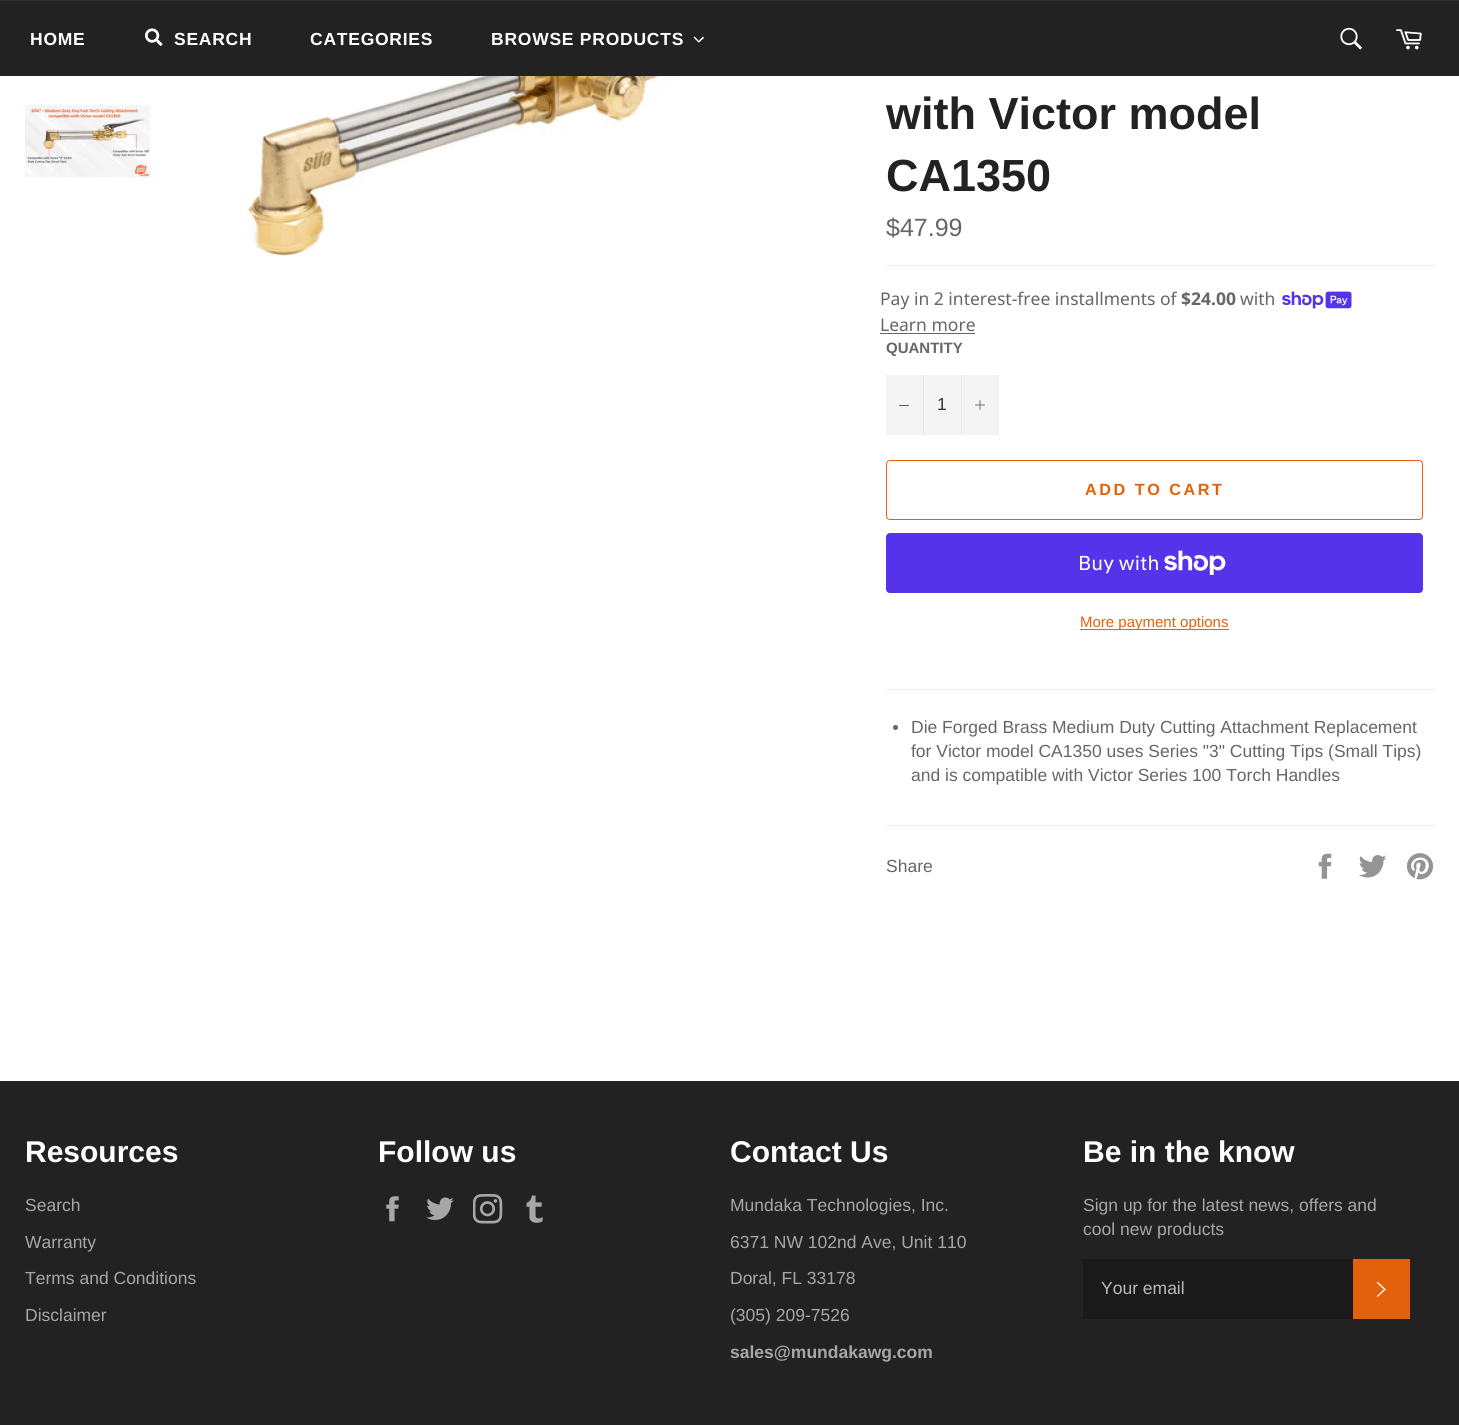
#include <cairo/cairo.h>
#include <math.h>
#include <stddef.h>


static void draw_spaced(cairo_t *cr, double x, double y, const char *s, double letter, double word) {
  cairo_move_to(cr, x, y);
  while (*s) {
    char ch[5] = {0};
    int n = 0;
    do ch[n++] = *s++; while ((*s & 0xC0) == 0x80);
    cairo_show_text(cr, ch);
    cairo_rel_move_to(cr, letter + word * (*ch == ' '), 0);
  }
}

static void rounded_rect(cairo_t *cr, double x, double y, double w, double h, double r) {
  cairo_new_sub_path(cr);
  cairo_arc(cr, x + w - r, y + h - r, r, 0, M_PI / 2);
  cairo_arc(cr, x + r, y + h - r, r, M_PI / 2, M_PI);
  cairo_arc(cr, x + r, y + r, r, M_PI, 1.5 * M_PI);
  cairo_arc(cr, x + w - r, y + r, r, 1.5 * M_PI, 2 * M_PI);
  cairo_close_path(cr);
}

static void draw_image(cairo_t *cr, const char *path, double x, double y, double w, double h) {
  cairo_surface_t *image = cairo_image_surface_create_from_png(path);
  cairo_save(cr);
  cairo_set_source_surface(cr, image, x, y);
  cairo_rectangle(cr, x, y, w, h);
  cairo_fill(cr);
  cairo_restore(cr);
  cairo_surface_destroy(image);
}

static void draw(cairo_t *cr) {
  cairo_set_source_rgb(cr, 1, 1, 1);
  cairo_paint(cr);
  cairo_set_source_rgb(cr, 34 / 255.0, 34 / 255.0, 34 / 255.0);
  cairo_rectangle(cr, 0, 1, 1459, 75);
  cairo_fill(cr);
  cairo_set_source_rgb(cr, 47 / 255.0, 47 / 255.0, 47 / 255.0);
  cairo_rectangle(cr, 0, 0, 1459, 1);
  cairo_fill(cr);
  draw_image(cr, "images/1.png", 145, 28, 18, 18);
  cairo_set_source_rgb(cr, 1, 1, 1);
  cairo_new_path(cr);
  cairo_move_to(cr, 703, 36.5);
  cairo_line_to(cr, 704, 38);
  cairo_line_to(cr, 699, 42.5);
  cairo_line_to(cr, 698, 41.5);
  cairo_close_path(cr);
  cairo_fill(cr);
  cairo_new_path(cr);
  cairo_move_to(cr, 694.5, 36.5);
  cairo_line_to(cr, 699.5, 41.5);
  cairo_line_to(cr, 698.5, 42.5);
  cairo_line_to(cr, 693.5, 37.5);
  cairo_close_path(cr);
  cairo_fill(cr);
  draw_image(cr, "images/2.png", 1340, 27, 22, 23);
  draw_image(cr, "images/3.png", 1396, 29, 26, 21);
  draw_image(cr, "images/4.png", 25, 105, 125, 73);
  draw_image(cr, "images/5.png", 246, 76, 428, 181);
  cairo_set_source_rgb(cr, 240 / 255.0, 240 / 255.0, 240 / 255.0);
  cairo_rectangle(cr, 886, 265, 549, 1);
  cairo_fill(cr);
  draw_image(cr, "images/6.png", 1282, 291, 70, 18);
  cairo_set_source_rgb(cr, 102 / 255.0, 102 / 255.0, 102 / 255.0);
  cairo_rectangle(cr, 880, 333, 95, 1);
  cairo_fill(cr);
  cairo_set_source_rgb(cr, 244 / 255.0, 244 / 255.0, 244 / 255.0);
  cairo_rectangle(cr, 886, 375, 113, 60);
  cairo_fill(cr);
  cairo_set_source_rgb(cr, 231 / 255.0, 231 / 255.0, 231 / 255.0);
  cairo_rectangle(cr, 923, 375, 1, 60);
  cairo_fill(cr);
  cairo_set_source_rgb(cr, 102 / 255.0, 102 / 255.0, 102 / 255.0);
  cairo_rectangle(cr, 899, 405, 10, 1);
  cairo_fill(cr);
  cairo_set_source_rgb(cr, 231 / 255.0, 231 / 255.0, 231 / 255.0);
  cairo_rectangle(cr, 961, 375, 1, 60);
  cairo_fill(cr);
  draw_image(cr, "images/7.png", 975, 400, 10, 10);
  rounded_rect(cr, 886.5, 460.5, 536, 59, 3.5);
  cairo_set_source_rgb(cr, 228 / 255.0, 97 / 255.0, 12 / 255.0);
  cairo_set_line_width(cr, 1);
  cairo_stroke(cr);
  cairo_set_source_rgb(cr, 84 / 255.0, 51 / 255.0, 235 / 255.0);
  rounded_rect(cr, 886, 533, 537, 60, 4);
  cairo_fill(cr);
  draw_image(cr, "images/8.png", 1164, 550, 62, 25);
  cairo_set_source_rgb(cr, 228 / 255.0, 97 / 255.0, 12 / 255.0);
  cairo_rectangle(cr, 1080, 629, 149, 1);
  cairo_fill(cr);
  cairo_set_source_rgb(cr, 240 / 255.0, 240 / 255.0, 240 / 255.0);
  cairo_rectangle(cr, 886, 689, 549, 1);
  cairo_fill(cr);
  cairo_set_source_rgb(cr, 102 / 255.0, 102 / 255.0, 102 / 255.0);
  cairo_arc(cr, 895.5, 727.5, 2.5, 0, 2 * M_PI);
  cairo_fill(cr);
  cairo_set_source_rgb(cr, 240 / 255.0, 240 / 255.0, 240 / 255.0);
  cairo_rectangle(cr, 886, 825, 549, 1);
  cairo_fill(cr);
  draw_image(cr, "images/9.png", 1318, 853, 14, 26);
  draw_image(cr, "images/10.png", 1359, 855, 28, 23);
  draw_image(cr, "images/11.png", 1406, 853, 28, 27);
  cairo_set_source_rgb(cr, 34 / 255.0, 34 / 255.0, 34 / 255.0);
  cairo_rectangle(cr, 0, 1081, 1459, 344);
  cairo_fill(cr);
  draw_image(cr, "images/12.png", 386, 1196, 13, 26);
  draw_image(cr, "images/13.png", 426, 1197, 28, 23);
  draw_image(cr, "images/14.png", 473, 1194, 30, 30);
  draw_image(cr, "images/15.png", 526, 1195, 17, 28);
  cairo_set_source_rgb(cr, 26 / 255.0, 26 / 255.0, 26 / 255.0);
  cairo_rectangle(cr, 1083, 1259, 270, 60);
  cairo_fill(cr);
  cairo_set_source_rgb(cr, 228 / 255.0, 97 / 255.0, 12 / 255.0);
  cairo_rectangle(cr, 1353, 1259, 57, 60);
  cairo_fill(cr);
  draw_image(cr, "images/16.png", 1376, 1281, 10, 16);
  cairo_select_font_face(cr, "Liberation Sans", CAIRO_FONT_SLANT_NORMAL, CAIRO_FONT_WEIGHT_BOLD);
  cairo_set_font_size(cr, 17.5);
  cairo_set_source_rgb(cr, 1, 1, 1);
  draw_spaced(cr, 30, 45, "HOME", 0.75, 0);
  draw_spaced(cr, 174, 45, "SEARCH", 0.75, 0);
  draw_spaced(cr, 310, 45, "CATEGORIES", 0.75, 0);
  draw_spaced(cr, 491, 45, "BROWSE PRODUCTS", 0.75, 0);
  cairo_set_font_size(cr, 45);
  cairo_set_source_rgb(cr, 34 / 255.0, 34 / 255.0, 34 / 255.0);
  cairo_move_to(cr, 886, 129);
  cairo_show_text(cr, "with Victor model");
  cairo_move_to(cr, 886, 191);
  cairo_show_text(cr, "CA1350");
  cairo_select_font_face(cr, "Liberation Sans", CAIRO_FONT_SLANT_NORMAL, CAIRO_FONT_WEIGHT_NORMAL);
  cairo_set_font_size(cr, 25);
  cairo_set_source_rgb(cr, 102 / 255.0, 102 / 255.0, 102 / 255.0);
  cairo_move_to(cr, 886, 236);
  cairo_show_text(cr, "$47.99");
  cairo_select_font_face(cr, "Noto Sans", CAIRO_FONT_SLANT_NORMAL, CAIRO_FONT_WEIGHT_NORMAL);
  cairo_set_font_size(cr, 17.5);
  cairo_move_to(cr, 880, 305);
  cairo_show_text(cr, "Pay in 2 interest-free installments of");
  cairo_select_font_face(cr, "Noto Sans", CAIRO_FONT_SLANT_NORMAL, CAIRO_FONT_WEIGHT_BOLD);
  cairo_move_to(cr, 1181, 305);
  cairo_show_text(cr, "$24.00");
  cairo_select_font_face(cr, "Noto Sans", CAIRO_FONT_SLANT_NORMAL, CAIRO_FONT_WEIGHT_NORMAL);
  cairo_move_to(cr, 1240, 305);
  cairo_show_text(cr, "with");
  cairo_move_to(cr, 880, 331);
  cairo_show_text(cr, "Learn more");
  cairo_select_font_face(cr, "Liberation Sans", CAIRO_FONT_SLANT_NORMAL, CAIRO_FONT_WEIGHT_BOLD);
  cairo_set_font_size(cr, 15);
  cairo_move_to(cr, 886, 353);
  cairo_show_text(cr, "QUANTITY");
  cairo_select_font_face(cr, "Liberation Sans", CAIRO_FONT_SLANT_NORMAL, CAIRO_FONT_WEIGHT_NORMAL);
  cairo_set_font_size(cr, 17.5);
  cairo_set_source_rgb(cr, 51 / 255.0, 51 / 255.0, 51 / 255.0);
  cairo_move_to(cr, 937, 410);
  cairo_show_text(cr, "1");
  cairo_select_font_face(cr, "Liberation Sans", CAIRO_FONT_SLANT_NORMAL, CAIRO_FONT_WEIGHT_BOLD);
  cairo_set_font_size(cr, 16.25);
  cairo_set_source_rgb(cr, 228 / 255.0, 97 / 255.0, 12 / 255.0);
  draw_spaced(cr, 1085, 495, "ADD TO CART", 2.5, 0);
  cairo_select_font_face(cr, "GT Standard", CAIRO_FONT_SLANT_NORMAL, CAIRO_FONT_WEIGHT_NORMAL);
  cairo_set_font_size(cr, 20);
  cairo_set_source_rgb(cr, 1, 1, 1);
  cairo_move_to(cr, 1078, 570);
  cairo_show_text(cr, "Buy with");
  cairo_select_font_face(cr, "Liberation Sans", CAIRO_FONT_SLANT_NORMAL, CAIRO_FONT_WEIGHT_NORMAL);
  cairo_set_font_size(cr, 15);
  cairo_set_source_rgb(cr, 228 / 255.0, 97 / 255.0, 12 / 255.0);
  cairo_move_to(cr, 1080, 627);
  cairo_show_text(cr, "More payment options");
  cairo_set_font_size(cr, 17.5);
  cairo_set_source_rgb(cr, 102 / 255.0, 102 / 255.0, 102 / 255.0);
  cairo_move_to(cr, 911, 733);
  cairo_show_text(cr, "Die Forged Brass Medium Duty Cutting Attachment Replacement");
  cairo_move_to(cr, 911, 757);
  cairo_show_text(cr, "for Victor model CA1350 uses Series \"3\" Cutting Tips (Small Tips)");
  cairo_move_to(cr, 911, 781);
  cairo_show_text(cr, "and is compatible with Victor Series 100 Torch Handles");
  cairo_move_to(cr, 886, 872);
  cairo_show_text(cr, "Share");
  cairo_select_font_face(cr, "Liberation Sans", CAIRO_FONT_SLANT_NORMAL, CAIRO_FONT_WEIGHT_BOLD);
  cairo_set_font_size(cr, 30);
  cairo_set_source_rgb(cr, 1, 1, 1);
  cairo_move_to(cr, 25, 1162);
  cairo_show_text(cr, "Resources");
  cairo_select_font_face(cr, "Liberation Sans", CAIRO_FONT_SLANT_NORMAL, CAIRO_FONT_WEIGHT_NORMAL);
  cairo_set_font_size(cr, 17.5);
  cairo_set_source_rgb(cr, 167 / 255.0, 167 / 255.0, 167 / 255.0);
  cairo_move_to(cr, 25, 1211);
  cairo_show_text(cr, "Search");
  cairo_move_to(cr, 25, 1248);
  cairo_show_text(cr, "Warranty");
  cairo_move_to(cr, 25, 1284);
  cairo_show_text(cr, "Terms and Conditions");
  cairo_move_to(cr, 25, 1321);
  cairo_show_text(cr, "Disclaimer");
  cairo_select_font_face(cr, "Liberation Sans", CAIRO_FONT_SLANT_NORMAL, CAIRO_FONT_WEIGHT_BOLD);
  cairo_set_font_size(cr, 30);
  cairo_set_source_rgb(cr, 1, 1, 1);
  cairo_move_to(cr, 378, 1162);
  cairo_show_text(cr, "Follow us");
  cairo_move_to(cr, 730, 1162);
  cairo_show_text(cr, "Contact Us");
  cairo_select_font_face(cr, "Liberation Sans", CAIRO_FONT_SLANT_NORMAL, CAIRO_FONT_WEIGHT_NORMAL);
  cairo_set_font_size(cr, 17.5);
  cairo_set_source_rgb(cr, 167 / 255.0, 167 / 255.0, 167 / 255.0);
  cairo_move_to(cr, 730, 1211);
  cairo_show_text(cr, "Mundaka Technologies, Inc.");
  cairo_move_to(cr, 730, 1248);
  cairo_show_text(cr, "6371 NW 102nd Ave, Unit 110");
  cairo_move_to(cr, 730, 1284);
  cairo_show_text(cr, "Doral, FL 33178");
  cairo_move_to(cr, 730, 1321);
  cairo_show_text(cr, "(305) 209-7526");
  cairo_select_font_face(cr, "Liberation Sans", CAIRO_FONT_SLANT_NORMAL, CAIRO_FONT_WEIGHT_BOLD);
  cairo_move_to(cr, 730, 1358);
  cairo_show_text(cr, "sales@mundakawg.com");
  cairo_set_font_size(cr, 30);
  cairo_set_source_rgb(cr, 1, 1, 1);
  cairo_move_to(cr, 1083, 1162);
  cairo_show_text(cr, "Be in the know");
  cairo_select_font_face(cr, "Liberation Sans", CAIRO_FONT_SLANT_NORMAL, CAIRO_FONT_WEIGHT_NORMAL);
  cairo_set_font_size(cr, 17.5);
  cairo_set_source_rgb(cr, 167 / 255.0, 167 / 255.0, 167 / 255.0);
  cairo_move_to(cr, 1083, 1211);
  cairo_show_text(cr, "Sign up for the latest news, offers and");
  cairo_move_to(cr, 1083, 1235);
  cairo_show_text(cr, "cool new products");
  cairo_set_source_rgb(cr, 186 / 255.0, 186 / 255.0, 186 / 255.0);
  cairo_move_to(cr, 1101, 1294);
  cairo_show_text(cr, "Your email");
}

int main(void) {
  cairo_surface_t *surface = cairo_image_surface_create(CAIRO_FORMAT_RGB24, 1459, 1425);
  cairo_t *cr = cairo_create(surface);
  cairo_font_options_t *options = cairo_font_options_create();
  cairo_font_options_set_hint_metrics(options, CAIRO_HINT_METRICS_OFF);
  cairo_font_options_set_hint_style(options, CAIRO_HINT_STYLE_NONE);
  cairo_set_font_options(cr, options);
  cairo_set_miter_limit(cr, 4);
  draw(cr);
  cairo_surface_write_to_png(surface, "out.png");
  cairo_font_options_destroy(options);
  cairo_destroy(cr);
  cairo_surface_destroy(surface);
  return 0;
}
